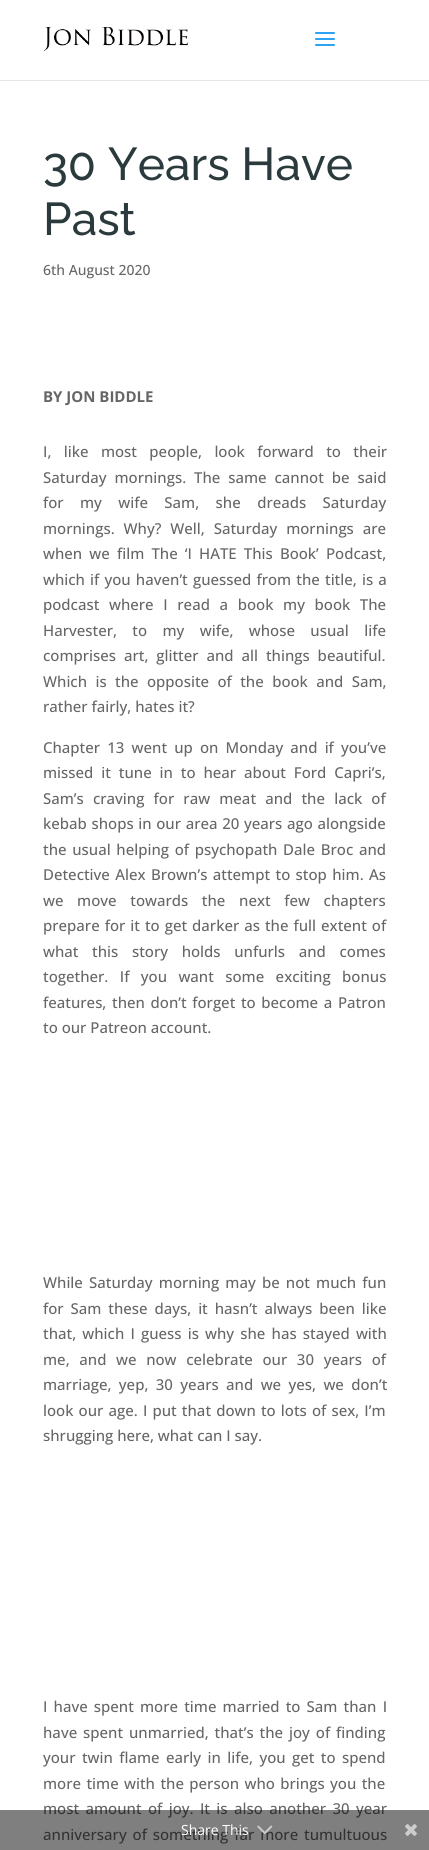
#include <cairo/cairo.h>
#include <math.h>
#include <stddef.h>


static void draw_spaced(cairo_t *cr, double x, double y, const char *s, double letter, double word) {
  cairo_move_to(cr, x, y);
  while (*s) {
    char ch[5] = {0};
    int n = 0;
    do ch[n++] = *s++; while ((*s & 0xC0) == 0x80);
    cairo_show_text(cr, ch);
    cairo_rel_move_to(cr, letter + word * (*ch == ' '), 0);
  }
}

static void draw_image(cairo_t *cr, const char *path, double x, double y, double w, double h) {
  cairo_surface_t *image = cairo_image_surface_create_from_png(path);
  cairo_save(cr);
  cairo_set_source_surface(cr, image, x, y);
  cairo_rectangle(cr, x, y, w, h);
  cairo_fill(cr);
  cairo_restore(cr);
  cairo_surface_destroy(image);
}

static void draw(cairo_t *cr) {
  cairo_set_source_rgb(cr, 1, 1, 1);
  cairo_paint(cr);
  cairo_set_source_rgb(cr, 230 / 255.0, 230 / 255.0, 230 / 255.0);
  cairo_rectangle(cr, 0, 80, 429, 1);
  cairo_fill(cr);
  draw_image(cr, "images/1.png", 44, 27, 144, 25);
  draw_image(cr, "images/2.png", 315, 32, 20, 14);
  cairo_select_font_face(cr, "Raleway Thin", CAIRO_FONT_SLANT_NORMAL, CAIRO_FONT_WEIGHT_NORMAL);
  cairo_set_font_size(cr, 46);
  cairo_set_source_rgb(cr, 43 / 255.0, 58 / 255.0, 61 / 255.0);
  cairo_move_to(cr, 43, 180);
  cairo_show_text(cr, "30 Years Have");
  cairo_move_to(cr, 43, 235);
  cairo_show_text(cr, "Past");
  cairo_select_font_face(cr, "Open Sans Medium", CAIRO_FONT_SLANT_NORMAL, CAIRO_FONT_WEIGHT_NORMAL);
  cairo_set_font_size(cr, 14);
  cairo_set_source_rgb(cr, 102 / 255.0, 102 / 255.0, 102 / 255.0);
  cairo_move_to(cr, 43, 275);
  cairo_show_text(cr, "6th August 2020");
  cairo_select_font_face(cr, "Open Sans", CAIRO_FONT_SLANT_NORMAL, CAIRO_FONT_WEIGHT_BOLD);
  cairo_set_font_size(cr, 15);
  cairo_move_to(cr, 43, 402);
  cairo_show_text(cr, "BY JON BIDDLE");
  cairo_select_font_face(cr, "Open Sans Medium", CAIRO_FONT_SLANT_NORMAL, CAIRO_FONT_WEIGHT_NORMAL);
  draw_spaced(cr, 43, 457, "I, like most people, look forward to their", 0, 8.5);
  draw_spaced(cr, 43, 483, "Saturday mornings. The same cannot be said", 0, 4);
  draw_spaced(cr, 43, 508, "for my wife Sam, she dreads Saturday", 0, 12.5);
  draw_spaced(cr, 43, 534, "mornings. Why? Well, Saturday mornings are", 0, 5);
  draw_spaced(cr, 43, 559, "when we film The ‘I HATE This Book’ Podcast,", 0, 3.25);
  draw_spaced(cr, 43, 585, "which if you haven’t guessed from the title, is a", 0, 1.25);
  draw_spaced(cr, 43, 610, "podcast where I read a book my book The", 0, 5.75);
  draw_spaced(cr, 43, 636, "Harvester, to my wife, whose usual life", 0, 11.5);
  draw_spaced(cr, 43, 661, "comprises art, glitter and all things beautiful.", 0, 4);
  draw_spaced(cr, 43, 687, "Which is the opposite of the book and Sam,", 0, 4.5);
  cairo_move_to(cr, 43, 712);
  cairo_show_text(cr, "rather fairly, hates it?");
  draw_spaced(cr, 43, 753, "Chapter 13 went up on Monday and if you’ve", 0, 3.25);
  draw_spaced(cr, 43, 778, "missed it tune in to hear about Ford Capri’s,", 0, 4);
  draw_spaced(cr, 43, 804, "Sam’s craving for raw meat and the lack of", 0, 5.25);
  draw_spaced(cr, 43, 829, "kebab shops in our area 20 years ago alongside", 0, 0.75);
  draw_spaced(cr, 43, 855, "the usual helping of psychopath Dale Broc and", 0, 1.75);
  draw_spaced(cr, 43, 880, "Detective Alex Brown’s attempt to stop him. As", 0, 1.5);
  draw_spaced(cr, 43, 906, "we move towards the next few chapters", 0, 9.75);
  draw_spaced(cr, 43, 931, "prepare for it to get darker as the full extent of", 0, 1.1);
  draw_spaced(cr, 43, 957, "what this story holds unfurls and comes", 0, 9.75);
  draw_spaced(cr, 43, 982, "together. If you want some exciting bonus", 0, 7.5);
  draw_spaced(cr, 43, 1008, "features, then don’t forget to become a Patron", 0, 1.75);
  cairo_move_to(cr, 43, 1033);
  cairo_show_text(cr, "to our Patreon account.");
  draw_spaced(cr, 43, 1288, "While Saturday morning may be not much fun", 0, 2.25);
  draw_spaced(cr, 43, 1314, "for Sam these days, it hasn’t always been like", 0, 3);
  draw_spaced(cr, 43, 1339, "that, which I guess is why she has stayed with", 0, 2.25);
  draw_spaced(cr, 43, 1365, "me, and we now celebrate our 30 years of", 0, 5.75);
  draw_spaced(cr, 43, 1390, "marriage, yep, 30 years and we yes, we don’t", 0, 3.5);
  draw_spaced(cr, 43, 1416, "look our age. I put that down to lots of sex, I’m", 0, 1.25);
  cairo_move_to(cr, 43, 1441);
  cairo_show_text(cr, "shrugging here, what can I say.");
  draw_spaced(cr, 43, 1712, "I have spent more time married to Sam than I", 0, 2.25);
  draw_spaced(cr, 43, 1738, "have spent unmarried, that’s the joy of finding", 0, 2);
  draw_spaced(cr, 43, 1763, "your twin flame early in life, you get to spend", 0, 2.5);
  draw_spaced(cr, 43, 1789, "more time with the person who brings you the", 0, 1.5);
  draw_spaced(cr, 43, 1814, "most amount of joy. It is also another 30 year", 0, 2.5);
  draw_spaced(cr, 43, 1840, "anniversary of something far more tumultuous", 0, 2);
  cairo_set_source_rgba(cr, 0, 0, 0, 0.5);
  cairo_rectangle(cr, 0, 1810, 429, 40);
  cairo_fill(cr);
  cairo_select_font_face(cr, "Open Sans", CAIRO_FONT_SLANT_NORMAL, CAIRO_FONT_WEIGHT_NORMAL);
  cairo_set_font_size(cr, 14);
  cairo_set_source_rgb(cr, 1, 1, 1);
  cairo_move_to(cr, 181, 1835);
  cairo_show_text(cr, "Share This");
  draw_image(cr, "images/3.png", 257, 1825, 16, 9);
  draw_image(cr, "images/4.png", 405, 1824, 12, 12);
}

int main(void) {
  cairo_surface_t *surface = cairo_image_surface_create(CAIRO_FORMAT_RGB24, 429, 1850);
  cairo_t *cr = cairo_create(surface);
  cairo_font_options_t *options = cairo_font_options_create();
  cairo_font_options_set_hint_metrics(options, CAIRO_HINT_METRICS_OFF);
  cairo_font_options_set_hint_style(options, CAIRO_HINT_STYLE_NONE);
  cairo_set_font_options(cr, options);
  cairo_set_miter_limit(cr, 4);
  draw(cr);
  cairo_surface_write_to_png(surface, "out.png");
  cairo_font_options_destroy(options);
  cairo_destroy(cr);
  cairo_surface_destroy(surface);
  return 0;
}
